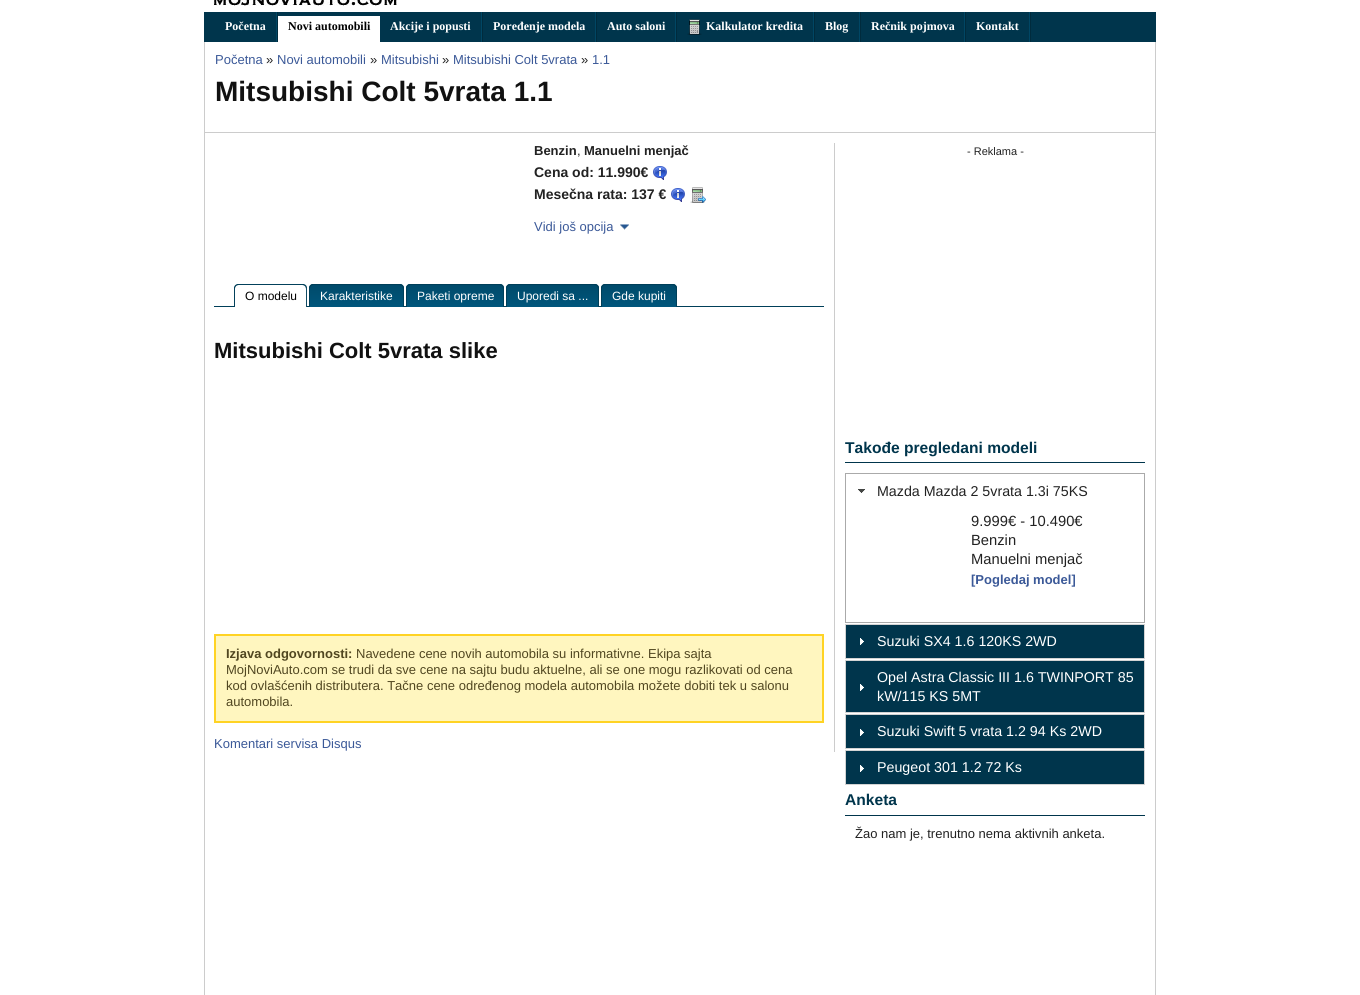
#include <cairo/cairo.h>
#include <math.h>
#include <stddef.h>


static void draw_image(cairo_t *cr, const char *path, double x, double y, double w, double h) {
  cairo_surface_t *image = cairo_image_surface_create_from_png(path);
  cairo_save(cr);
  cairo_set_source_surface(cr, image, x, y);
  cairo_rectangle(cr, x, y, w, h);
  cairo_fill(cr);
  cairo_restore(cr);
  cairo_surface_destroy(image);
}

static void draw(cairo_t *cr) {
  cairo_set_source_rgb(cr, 1, 1, 1);
  cairo_paint(cr);
  draw_image(cr, "images/1.png", 213, 0, 184, 6);
  cairo_set_source_rgb(cr, 0, 53 / 255.0, 76 / 255.0);
  cairo_rectangle(cr, 204, 12, 952, 30);
  cairo_fill(cr);
  cairo_set_source_rgb(cr, 0, 43 / 255.0, 61 / 255.0);
  cairo_rectangle(cr, 277, 12, 1, 30);
  cairo_fill(cr);
  cairo_set_source_rgb(cr, 0, 70 / 255.0, 100 / 255.0);
  cairo_rectangle(cr, 276, 12, 1, 30);
  cairo_fill(cr);
  cairo_set_source_rgb(cr, 1, 1, 1);
  cairo_rectangle(cr, 278, 16, 102, 26);
  cairo_fill(cr);
  cairo_set_source_rgb(cr, 0, 43 / 255.0, 61 / 255.0);
  cairo_rectangle(cr, 482, 12, 1, 30);
  cairo_fill(cr);
  cairo_set_source_rgb(cr, 0, 70 / 255.0, 100 / 255.0);
  cairo_rectangle(cr, 481, 12, 1, 30);
  cairo_fill(cr);
  cairo_set_source_rgb(cr, 0, 43 / 255.0, 61 / 255.0);
  cairo_rectangle(cr, 596, 12, 1, 30);
  cairo_fill(cr);
  cairo_set_source_rgb(cr, 0, 70 / 255.0, 100 / 255.0);
  cairo_rectangle(cr, 595, 12, 1, 30);
  cairo_fill(cr);
  cairo_set_source_rgb(cr, 0, 43 / 255.0, 61 / 255.0);
  cairo_rectangle(cr, 676, 12, 1, 30);
  cairo_fill(cr);
  cairo_set_source_rgb(cr, 0, 70 / 255.0, 100 / 255.0);
  cairo_rectangle(cr, 675, 12, 1, 30);
  cairo_fill(cr);
  cairo_set_source_rgb(cr, 0, 43 / 255.0, 61 / 255.0);
  cairo_rectangle(cr, 814, 12, 1, 30);
  cairo_fill(cr);
  draw_image(cr, "images/2.png", 687, 19, 15, 16);
  cairo_set_source_rgb(cr, 0, 70 / 255.0, 100 / 255.0);
  cairo_rectangle(cr, 813, 12, 1, 30);
  cairo_fill(cr);
  cairo_set_source_rgb(cr, 0, 43 / 255.0, 61 / 255.0);
  cairo_rectangle(cr, 860, 12, 1, 30);
  cairo_fill(cr);
  cairo_set_source_rgb(cr, 0, 70 / 255.0, 100 / 255.0);
  cairo_rectangle(cr, 859, 12, 1, 30);
  cairo_fill(cr);
  cairo_set_source_rgb(cr, 0, 43 / 255.0, 61 / 255.0);
  cairo_rectangle(cr, 965, 12, 1, 30);
  cairo_fill(cr);
  cairo_set_source_rgb(cr, 0, 70 / 255.0, 100 / 255.0);
  cairo_rectangle(cr, 964, 12, 1, 30);
  cairo_fill(cr);
  cairo_set_source_rgb(cr, 0, 43 / 255.0, 61 / 255.0);
  cairo_rectangle(cr, 1030, 12, 1, 30);
  cairo_fill(cr);
  cairo_set_source_rgb(cr, 0, 70 / 255.0, 100 / 255.0);
  cairo_rectangle(cr, 1029, 12, 1, 30);
  cairo_fill(cr);
  cairo_set_source_rgb(cr, 204 / 255.0, 204 / 255.0, 204 / 255.0);
  cairo_rectangle(cr, 1155, 42, 1, 953);
  cairo_fill(cr);
  cairo_rectangle(cr, 204, 42, 1, 953);
  cairo_fill(cr);
  cairo_rectangle(cr, 205, 132, 950, 1);
  cairo_fill(cr);
  cairo_rectangle(cr, 834, 143, 1, 609);
  cairo_fill(cr);
  draw_image(cr, "images/3.png", 653, 166, 14, 14);
  draw_image(cr, "images/3.png", 671, 188, 14, 14);
  draw_image(cr, "images/4.png", 690, 187, 16, 16);
  draw_image(cr, "images/5.png", 620, 224, 9, 6);
  cairo_set_source_rgb(cr, 0, 63 / 255.0, 89 / 255.0);
  cairo_rectangle(cr, 214, 306, 610, 1);
  cairo_fill(cr);
  draw_image(cr, "images/6.png", 234, 284, 5, 23);
  draw_image(cr, "images/7.png", 239, 284, 68, 23);
  draw_image(cr, "images/8.png", 309, 284, 5, 23);
  draw_image(cr, "images/9.png", 314, 284, 90, 23);
  draw_image(cr, "images/8.png", 406, 284, 5, 23);
  draw_image(cr, "images/10.png", 411, 284, 93, 23);
  draw_image(cr, "images/8.png", 506, 284, 5, 23);
  draw_image(cr, "images/11.png", 511, 284, 88, 23);
  draw_image(cr, "images/8.png", 601, 284, 5, 23);
  draw_image(cr, "images/12.png", 606, 284, 71, 23);
  cairo_set_source_rgb(cr, 1, 246 / 255.0, 191 / 255.0);
  cairo_rectangle(cr, 215, 635, 608, 87);
  cairo_fill_preserve(cr);
  cairo_set_source_rgb(cr, 1, 211 / 255.0, 36 / 255.0);
  cairo_stroke(cr);
  cairo_set_source_rgb(cr, 0, 53 / 255.0, 76 / 255.0);
  cairo_rectangle(cr, 845, 462, 300, 1);
  cairo_fill(cr);
  cairo_rectangle(cr, 845.5, 473.5, 299, 34);
  cairo_set_source_rgb(cr, 170 / 255.0, 170 / 255.0, 170 / 255.0);
  cairo_set_line_width(cr, 1);
  cairo_stroke(cr);
  draw_image(cr, "images/13.png", 858, 489, 7, 4);
  cairo_set_source_rgb(cr, 1, 1, 1);
  cairo_rectangle(cr, 846, 507, 298, 1);
  cairo_fill(cr);
  cairo_set_source_rgb(cr, 170 / 255.0, 170 / 255.0, 170 / 255.0);
  cairo_rectangle(cr, 1144, 507, 1, 116);
  cairo_fill(cr);
  cairo_rectangle(cr, 845, 622, 300, 1);
  cairo_fill(cr);
  cairo_rectangle(cr, 845, 507, 1, 116);
  cairo_fill(cr);
  cairo_set_source_rgb(cr, 0, 53 / 255.0, 76 / 255.0);
  cairo_rectangle(cr, 845.5, 624.5, 299, 34);
  cairo_fill_preserve(cr);
  cairo_set_source_rgb(cr, 211 / 255.0, 211 / 255.0, 211 / 255.0);
  cairo_stroke(cr);
  draw_image(cr, "images/14.png", 860, 638, 4, 7);
  cairo_set_source_rgb(cr, 0, 53 / 255.0, 76 / 255.0);
  cairo_rectangle(cr, 845.5, 660.5, 299, 52);
  cairo_fill_preserve(cr);
  cairo_set_source_rgb(cr, 211 / 255.0, 211 / 255.0, 211 / 255.0);
  cairo_stroke(cr);
  draw_image(cr, "images/14.png", 860, 684, 4, 7);
  cairo_set_source_rgb(cr, 0, 53 / 255.0, 76 / 255.0);
  cairo_rectangle(cr, 845.5, 714.5, 299, 34);
  cairo_fill_preserve(cr);
  cairo_set_source_rgb(cr, 211 / 255.0, 211 / 255.0, 211 / 255.0);
  cairo_stroke(cr);
  draw_image(cr, "images/14.png", 860, 729, 4, 7);
  cairo_set_source_rgb(cr, 0, 53 / 255.0, 76 / 255.0);
  cairo_rectangle(cr, 845.5, 750.5, 299, 34);
  cairo_fill_preserve(cr);
  cairo_set_source_rgb(cr, 211 / 255.0, 211 / 255.0, 211 / 255.0);
  cairo_stroke(cr);
  draw_image(cr, "images/14.png", 860, 765, 4, 7);
  cairo_set_source_rgb(cr, 0, 53 / 255.0, 76 / 255.0);
  cairo_rectangle(cr, 845, 815, 300, 1);
  cairo_fill(cr);
  cairo_select_font_face(cr, "Liberation Serif", CAIRO_FONT_SLANT_NORMAL, CAIRO_FONT_WEIGHT_BOLD);
  cairo_set_font_size(cr, 12);
  cairo_set_source_rgb(cr, 1, 1, 1);
  cairo_move_to(cr, 225, 30);
  cairo_show_text(cr, "Početna");
  cairo_set_source_rgb(cr, 0, 0, 0);
  cairo_move_to(cr, 288, 30);
  cairo_show_text(cr, "Novi automobili");
  cairo_set_source_rgb(cr, 1, 1, 1);
  cairo_move_to(cr, 390, 30);
  cairo_show_text(cr, "Akcije i popusti");
  cairo_move_to(cr, 493, 30);
  cairo_show_text(cr, "Poređenje modela");
  cairo_move_to(cr, 607, 30);
  cairo_show_text(cr, "Auto saloni");
  cairo_move_to(cr, 706, 30);
  cairo_show_text(cr, "Kalkulator kredita");
  cairo_move_to(cr, 825, 30);
  cairo_show_text(cr, "Blog");
  cairo_move_to(cr, 871, 30);
  cairo_show_text(cr, "Rečnik pojmova");
  cairo_move_to(cr, 976, 30);
  cairo_show_text(cr, "Kontakt");
  cairo_select_font_face(cr, "Liberation Sans", CAIRO_FONT_SLANT_NORMAL, CAIRO_FONT_WEIGHT_NORMAL);
  cairo_set_font_size(cr, 13);
  cairo_set_source_rgb(cr, 59 / 255.0, 89 / 255.0, 152 / 255.0);
  cairo_move_to(cr, 215, 64);
  cairo_show_text(cr, "Početna");
  cairo_set_source_rgb(cr, 34 / 255.0, 34 / 255.0, 34 / 255.0);
  cairo_move_to(cr, 266, 64);
  cairo_show_text(cr, "»");
  cairo_set_source_rgb(cr, 59 / 255.0, 89 / 255.0, 152 / 255.0);
  cairo_move_to(cr, 277, 64);
  cairo_show_text(cr, "Novi automobili");
  cairo_set_source_rgb(cr, 34 / 255.0, 34 / 255.0, 34 / 255.0);
  cairo_move_to(cr, 370, 64);
  cairo_show_text(cr, "»");
  cairo_set_source_rgb(cr, 59 / 255.0, 89 / 255.0, 152 / 255.0);
  cairo_move_to(cr, 381, 64);
  cairo_show_text(cr, "Mitsubishi");
  cairo_set_source_rgb(cr, 34 / 255.0, 34 / 255.0, 34 / 255.0);
  cairo_move_to(cr, 442, 64);
  cairo_show_text(cr, "»");
  cairo_set_source_rgb(cr, 59 / 255.0, 89 / 255.0, 152 / 255.0);
  cairo_move_to(cr, 453, 64);
  cairo_show_text(cr, "Mitsubishi Colt 5vrata");
  cairo_set_source_rgb(cr, 34 / 255.0, 34 / 255.0, 34 / 255.0);
  cairo_move_to(cr, 581, 64);
  cairo_show_text(cr, "»");
  cairo_set_source_rgb(cr, 59 / 255.0, 89 / 255.0, 152 / 255.0);
  cairo_move_to(cr, 592, 64);
  cairo_show_text(cr, "1.1");
  cairo_select_font_face(cr, "Liberation Sans", CAIRO_FONT_SLANT_NORMAL, CAIRO_FONT_WEIGHT_BOLD);
  cairo_set_font_size(cr, 28);
  cairo_set_source_rgb(cr, 17 / 255.0, 17 / 255.0, 17 / 255.0);
  cairo_move_to(cr, 215, 101);
  cairo_show_text(cr, "Mitsubishi Colt 5vrata 1.1");
  cairo_set_font_size(cr, 13);
  cairo_set_source_rgb(cr, 34 / 255.0, 34 / 255.0, 34 / 255.0);
  cairo_move_to(cr, 534, 155);
  cairo_show_text(cr, "Benzin");
  cairo_select_font_face(cr, "Liberation Sans", CAIRO_FONT_SLANT_NORMAL, CAIRO_FONT_WEIGHT_NORMAL);
  cairo_move_to(cr, 577, 155);
  cairo_show_text(cr, ",");
  cairo_select_font_face(cr, "Liberation Sans", CAIRO_FONT_SLANT_NORMAL, CAIRO_FONT_WEIGHT_BOLD);
  cairo_move_to(cr, 584, 155);
  cairo_show_text(cr, "Manuelni menjač");
  cairo_set_font_size(cr, 14);
  cairo_move_to(cr, 534, 177);
  cairo_show_text(cr, "Cena od: 11.990€");
  cairo_move_to(cr, 534, 199);
  cairo_show_text(cr, "Mesečna rata: 137 €");
  cairo_select_font_face(cr, "Liberation Sans", CAIRO_FONT_SLANT_NORMAL, CAIRO_FONT_WEIGHT_NORMAL);
  cairo_set_font_size(cr, 13);
  cairo_set_source_rgb(cr, 59 / 255.0, 89 / 255.0, 152 / 255.0);
  cairo_move_to(cr, 534, 231);
  cairo_show_text(cr, "Vidi još opcija");
  cairo_set_font_size(cr, 12);
  cairo_set_source_rgb(cr, 0, 0, 0);
  cairo_move_to(cr, 245, 300);
  cairo_show_text(cr, "O modelu");
  cairo_set_source_rgb(cr, 1, 1, 1);
  cairo_move_to(cr, 320, 300);
  cairo_show_text(cr, "Karakteristike");
  cairo_move_to(cr, 417, 300);
  cairo_show_text(cr, "Paketi opreme");
  cairo_move_to(cr, 517, 300);
  cairo_show_text(cr, "Uporedi sa ...");
  cairo_move_to(cr, 612, 300);
  cairo_show_text(cr, "Gde kupiti");
  cairo_select_font_face(cr, "Liberation Sans", CAIRO_FONT_SLANT_NORMAL, CAIRO_FONT_WEIGHT_BOLD);
  cairo_set_font_size(cr, 22);
  cairo_set_source_rgb(cr, 17 / 255.0, 17 / 255.0, 17 / 255.0);
  cairo_move_to(cr, 214, 358);
  cairo_show_text(cr, "Mitsubishi Colt 5vrata slike");
  cairo_set_font_size(cr, 13);
  cairo_set_source_rgb(cr, 81 / 255.0, 71 / 255.0, 33 / 255.0);
  cairo_move_to(cr, 226, 658);
  cairo_show_text(cr, "Izjava odgovornosti:");
  cairo_select_font_face(cr, "Liberation Sans", CAIRO_FONT_SLANT_NORMAL, CAIRO_FONT_WEIGHT_NORMAL);
  cairo_move_to(cr, 356, 658);
  cairo_show_text(cr, "Navedene cene novih automobila su informativne. Ekipa sajta");
  cairo_move_to(cr, 226, 674);
  cairo_show_text(cr, "MojNoviAuto.com se trudi da sve cene na sajtu budu aktuelne, ali se one mogu razlikovati od cena");
  cairo_move_to(cr, 226, 690);
  cairo_show_text(cr, "kod ovlašćenih distributera. Tačne cene određenog modela automobila možete dobiti tek u salonu");
  cairo_move_to(cr, 226, 706);
  cairo_show_text(cr, "automobila.");
  cairo_set_source_rgb(cr, 59 / 255.0, 89 / 255.0, 152 / 255.0);
  cairo_move_to(cr, 214, 748);
  cairo_show_text(cr, "Komentari servisa Disqus");
  cairo_set_font_size(cr, 11);
  cairo_set_source_rgb(cr, 34 / 255.0, 34 / 255.0, 34 / 255.0);
  cairo_move_to(cr, 967, 155);
  cairo_show_text(cr, "- Reklama -");
  cairo_select_font_face(cr, "Liberation Sans", CAIRO_FONT_SLANT_NORMAL, CAIRO_FONT_WEIGHT_BOLD);
  cairo_set_font_size(cr, 15.6);
  cairo_set_source_rgb(cr, 0, 53 / 255.0, 76 / 255.0);
  cairo_move_to(cr, 845, 453);
  cairo_show_text(cr, "Takođe pregledani modeli");
  cairo_select_font_face(cr, "Liberation Sans", CAIRO_FONT_SLANT_NORMAL, CAIRO_FONT_WEIGHT_NORMAL);
  cairo_set_font_size(cr, 14.25);
  cairo_set_source_rgb(cr, 34 / 255.0, 34 / 255.0, 34 / 255.0);
  cairo_move_to(cr, 877, 496);
  cairo_show_text(cr, "Mazda Mazda 2 5vrata 1.3i 75KS");
  cairo_set_font_size(cr, 14.75);
  cairo_move_to(cr, 971, 526);
  cairo_show_text(cr, "9.999€ - 10.490€");
  cairo_move_to(cr, 971, 545);
  cairo_show_text(cr, "Benzin");
  cairo_move_to(cr, 971, 564);
  cairo_show_text(cr, "Manuelni menjač");
  cairo_select_font_face(cr, "Liberation Sans", CAIRO_FONT_SLANT_NORMAL, CAIRO_FONT_WEIGHT_BOLD);
  cairo_set_font_size(cr, 13);
  cairo_set_source_rgb(cr, 59 / 255.0, 89 / 255.0, 152 / 255.0);
  cairo_move_to(cr, 971, 584);
  cairo_show_text(cr, "[Pogledaj model]");
  cairo_select_font_face(cr, "Liberation Sans", CAIRO_FONT_SLANT_NORMAL, CAIRO_FONT_WEIGHT_NORMAL);
  cairo_set_font_size(cr, 14.25);
  cairo_set_source_rgb(cr, 1, 1, 1);
  cairo_move_to(cr, 877, 646);
  cairo_show_text(cr, "Suzuki SX4 1.6 120KS 2WD");
  cairo_move_to(cr, 877, 682);
  cairo_show_text(cr, "Opel Astra Classic III 1.6 TWINPORT 85");
  cairo_move_to(cr, 877, 701);
  cairo_show_text(cr, "kW/115 KS 5MT");
  cairo_move_to(cr, 877, 736);
  cairo_show_text(cr, "Suzuki Swift 5 vrata 1.2 94 Ks 2WD");
  cairo_move_to(cr, 877, 772);
  cairo_show_text(cr, "Peugeot 301 1.2 72 Ks");
  cairo_select_font_face(cr, "Liberation Sans", CAIRO_FONT_SLANT_NORMAL, CAIRO_FONT_WEIGHT_BOLD);
  cairo_set_font_size(cr, 15.6);
  cairo_set_source_rgb(cr, 0, 53 / 255.0, 76 / 255.0);
  cairo_move_to(cr, 845, 805);
  cairo_show_text(cr, "Anketa");
  cairo_select_font_face(cr, "Liberation Sans", CAIRO_FONT_SLANT_NORMAL, CAIRO_FONT_WEIGHT_NORMAL);
  cairo_set_font_size(cr, 13);
  cairo_set_source_rgb(cr, 34 / 255.0, 34 / 255.0, 34 / 255.0);
  cairo_move_to(cr, 855, 838);
  cairo_show_text(cr, "Žao nam je, trenutno nema aktivnih anketa.");
}

int main(void) {
  cairo_surface_t *surface = cairo_image_surface_create(CAIRO_FORMAT_RGB24, 1360, 995);
  cairo_t *cr = cairo_create(surface);
  cairo_font_options_t *options = cairo_font_options_create();
  cairo_font_options_set_hint_metrics(options, CAIRO_HINT_METRICS_OFF);
  cairo_font_options_set_hint_style(options, CAIRO_HINT_STYLE_NONE);
  cairo_set_font_options(cr, options);
  cairo_set_miter_limit(cr, 4);
  draw(cr);
  cairo_surface_write_to_png(surface, "out.png");
  cairo_font_options_destroy(options);
  cairo_destroy(cr);
  cairo_surface_destroy(surface);
  return 0;
}
